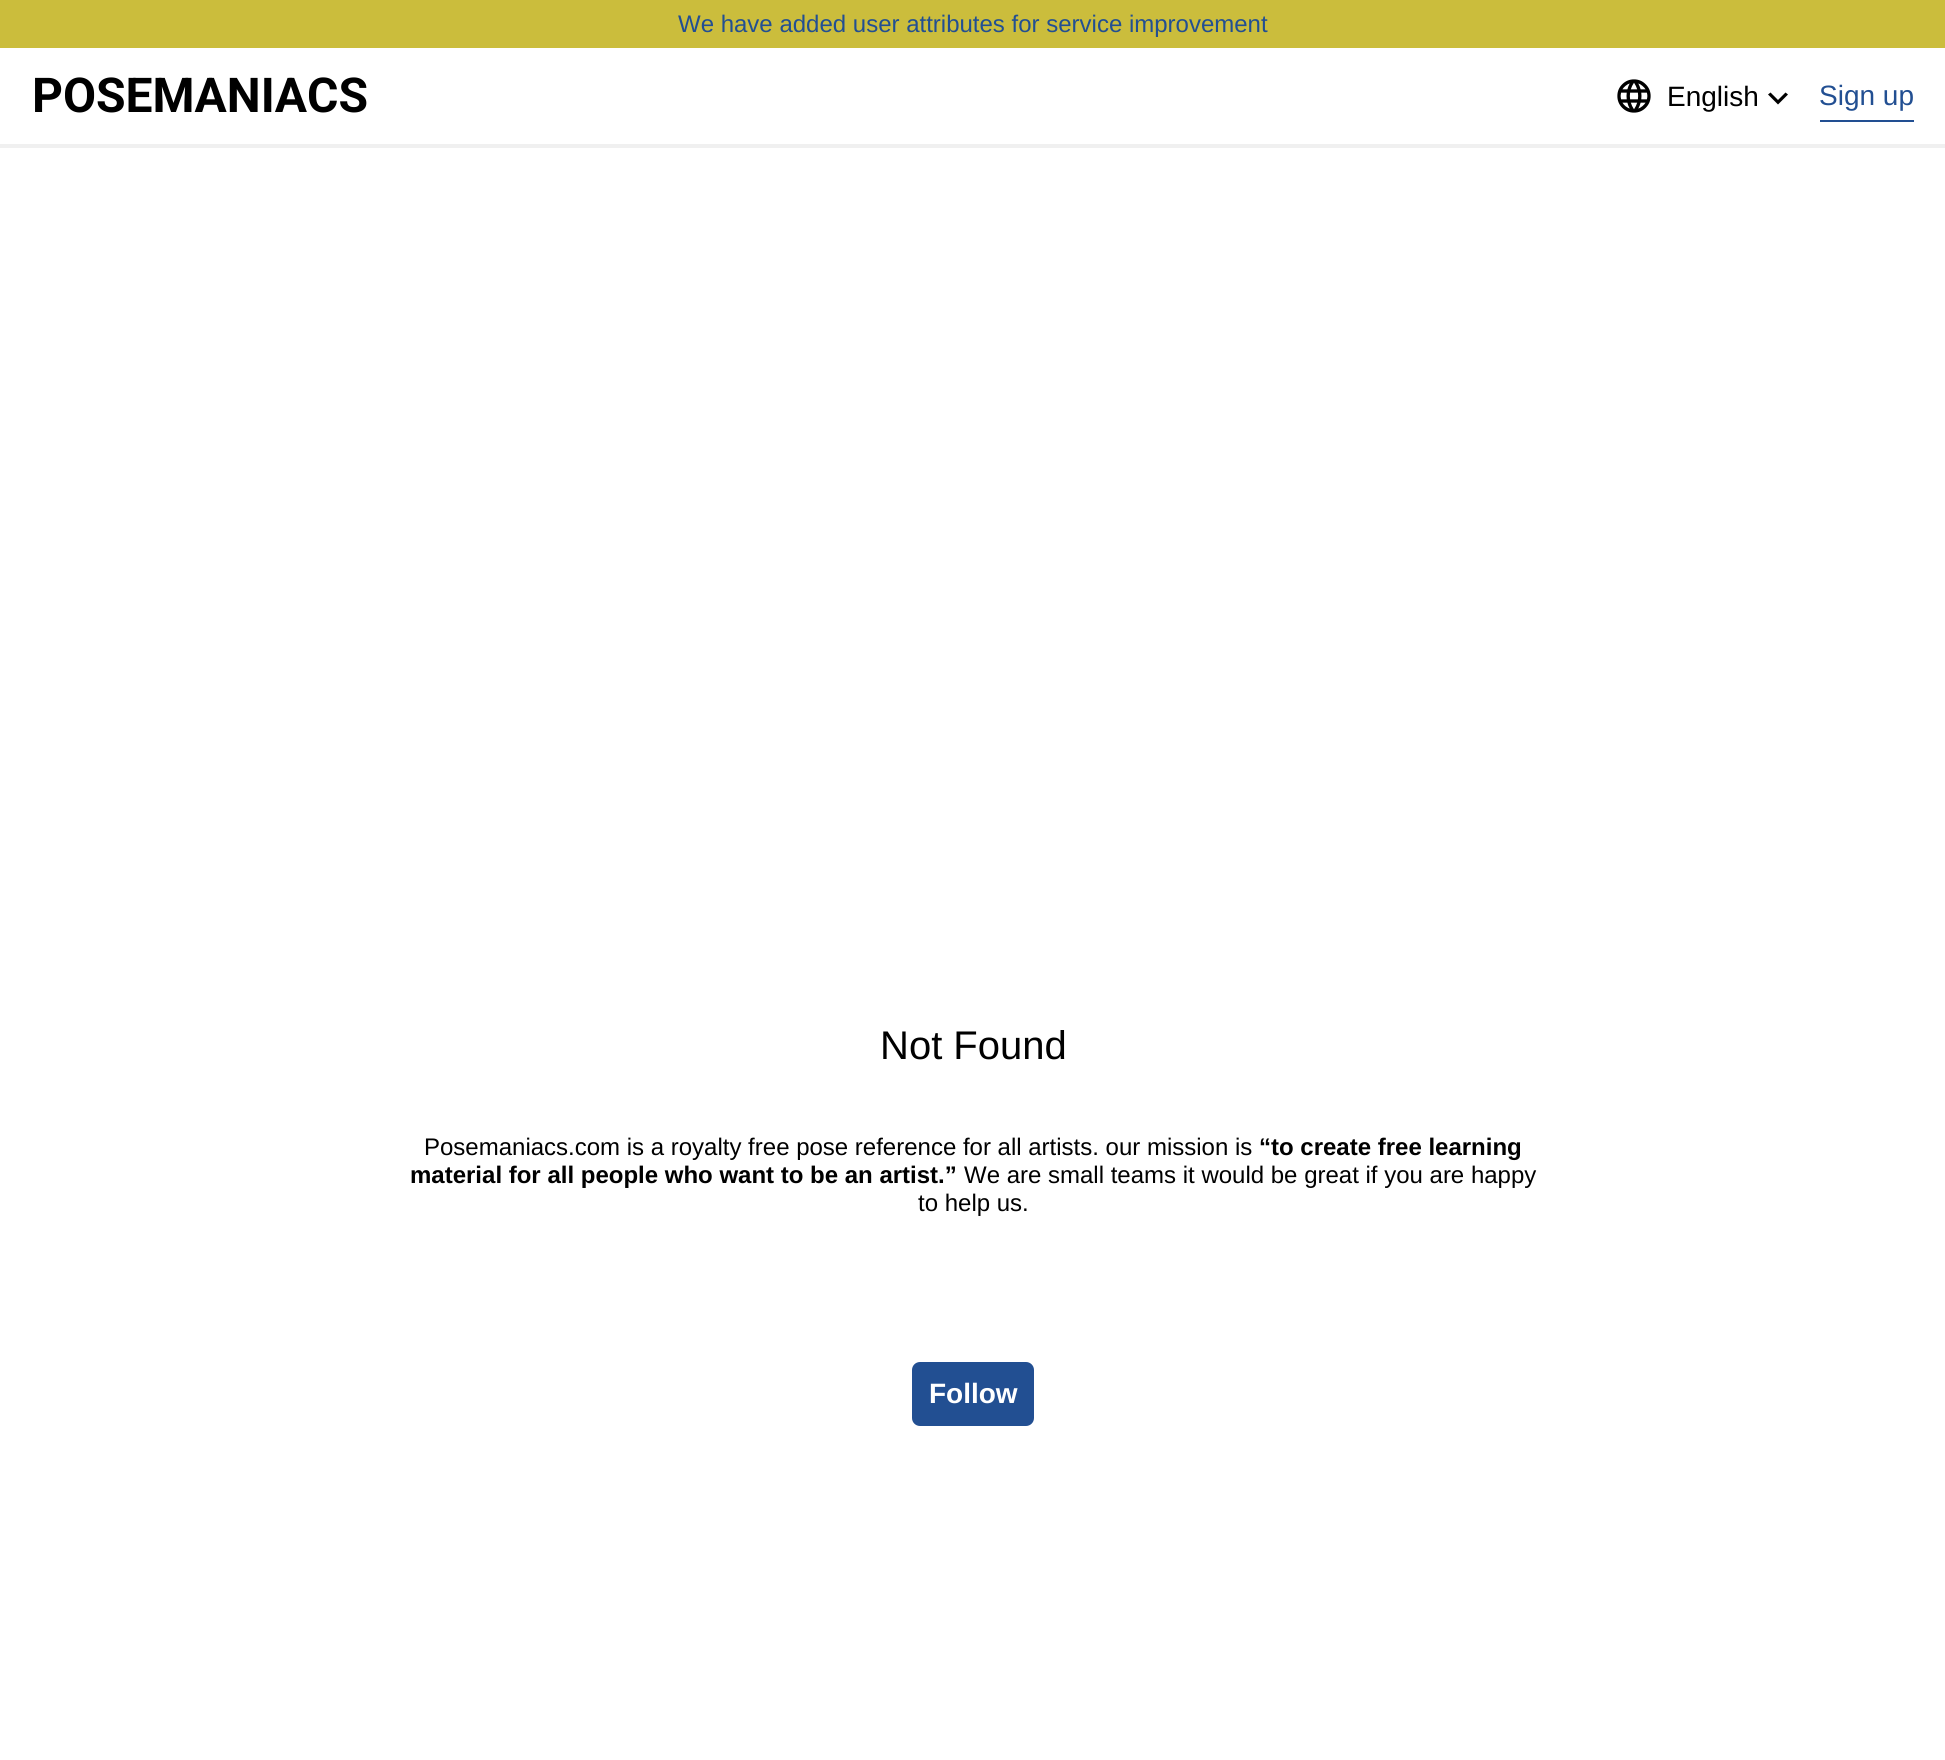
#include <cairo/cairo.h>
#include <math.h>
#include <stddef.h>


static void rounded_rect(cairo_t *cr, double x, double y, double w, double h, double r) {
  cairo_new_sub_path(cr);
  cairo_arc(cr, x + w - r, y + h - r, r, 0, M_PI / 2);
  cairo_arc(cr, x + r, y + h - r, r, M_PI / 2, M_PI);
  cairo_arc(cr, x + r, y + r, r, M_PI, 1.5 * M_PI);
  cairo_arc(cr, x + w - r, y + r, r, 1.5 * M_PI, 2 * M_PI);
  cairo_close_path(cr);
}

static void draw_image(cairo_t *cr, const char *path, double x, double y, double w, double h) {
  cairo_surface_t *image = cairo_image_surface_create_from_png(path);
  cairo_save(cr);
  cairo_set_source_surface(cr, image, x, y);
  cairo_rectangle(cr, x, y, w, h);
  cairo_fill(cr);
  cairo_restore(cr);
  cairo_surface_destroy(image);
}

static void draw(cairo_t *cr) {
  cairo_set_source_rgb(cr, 1, 1, 1);
  cairo_paint(cr);
  cairo_set_source_rgb(cr, 203 / 255.0, 189 / 255.0, 60 / 255.0);
  cairo_rectangle(cr, 0, 0, 1945, 48);
  cairo_fill(cr);
  draw_image(cr, "images/1.png", 1617, 79, 34, 34);
  cairo_set_source_rgb(cr, 0, 0, 0);
  cairo_new_path(cr);
  cairo_move_to(cr, 1770.5, 92.5);
  cairo_line_to(cr, 1778, 100);
  cairo_line_to(cr, 1785.5, 92.5);
  cairo_line_to(cr, 1788, 94.5);
  cairo_line_to(cr, 1778, 104.5);
  cairo_line_to(cr, 1768, 94.5);
  cairo_close_path(cr);
  cairo_fill(cr);
  cairo_set_source_rgb(cr, 34 / 255.0, 79 / 255.0, 146 / 255.0);
  cairo_rectangle(cr, 1820, 120, 94, 2);
  cairo_fill(cr);
  cairo_set_source_rgb(cr, 240 / 255.0, 240 / 255.0, 240 / 255.0);
  cairo_rectangle(cr, 0, 144, 1945, 4);
  cairo_fill(cr);
  cairo_set_source_rgb(cr, 34 / 255.0, 79 / 255.0, 146 / 255.0);
  rounded_rect(cr, 912, 1362, 122, 64, 8);
  cairo_fill(cr);
  cairo_select_font_face(cr, "Liberation Sans", CAIRO_FONT_SLANT_NORMAL, CAIRO_FONT_WEIGHT_NORMAL);
  cairo_set_font_size(cr, 24);
  cairo_move_to(cr, 678, 32);
  cairo_show_text(cr, "We have added user attributes for service improvement");
  cairo_select_font_face(cr, "Roboto", CAIRO_FONT_SLANT_NORMAL, CAIRO_FONT_WEIGHT_BOLD);
  cairo_set_font_size(cr, 48);
  cairo_set_source_rgb(cr, 0, 0, 0);
  cairo_move_to(cr, 32, 112);
  cairo_show_text(cr, "POSEMANIACS");
  cairo_select_font_face(cr, "Liberation Sans", CAIRO_FONT_SLANT_NORMAL, CAIRO_FONT_WEIGHT_NORMAL);
  cairo_set_font_size(cr, 28);
  cairo_move_to(cr, 1667, 106);
  cairo_show_text(cr, "English");
  cairo_set_source_rgb(cr, 34 / 255.0, 79 / 255.0, 146 / 255.0);
  cairo_move_to(cr, 1819, 105);
  cairo_show_text(cr, "Sign up");
  cairo_set_font_size(cr, 40);
  cairo_set_source_rgb(cr, 0, 0, 0);
  cairo_move_to(cr, 880, 1059);
  cairo_show_text(cr, "Not Found");
  cairo_set_font_size(cr, 24);
  cairo_move_to(cr, 424, 1155);
  cairo_show_text(cr, "Posemaniacs.com is a royalty free pose reference for all artists. our mission is");
  cairo_select_font_face(cr, "Liberation Sans", CAIRO_FONT_SLANT_NORMAL, CAIRO_FONT_WEIGHT_BOLD);
  cairo_move_to(cr, 1259, 1155);
  cairo_show_text(cr, "“to create free learning");
  cairo_move_to(cr, 410, 1183);
  cairo_show_text(cr, "material for all people who want to be an artist.”");
  cairo_select_font_face(cr, "Liberation Sans", CAIRO_FONT_SLANT_NORMAL, CAIRO_FONT_WEIGHT_NORMAL);
  cairo_move_to(cr, 964, 1183);
  cairo_show_text(cr, "We are small teams it would be great if you are happy");
  cairo_move_to(cr, 918, 1211);
  cairo_show_text(cr, "to help us.");
  cairo_select_font_face(cr, "Liberation Sans", CAIRO_FONT_SLANT_NORMAL, CAIRO_FONT_WEIGHT_BOLD);
  cairo_set_font_size(cr, 28);
  cairo_set_source_rgb(cr, 1, 1, 1);
  cairo_move_to(cr, 929, 1403);
  cairo_show_text(cr, "Follow");
}

int main(void) {
  cairo_surface_t *surface = cairo_image_surface_create(CAIRO_FORMAT_RGB24, 1945, 1760);
  cairo_t *cr = cairo_create(surface);
  cairo_font_options_t *options = cairo_font_options_create();
  cairo_font_options_set_hint_metrics(options, CAIRO_HINT_METRICS_OFF);
  cairo_font_options_set_hint_style(options, CAIRO_HINT_STYLE_NONE);
  cairo_set_font_options(cr, options);
  cairo_set_miter_limit(cr, 4);
  draw(cr);
  cairo_surface_write_to_png(surface, "out.png");
  cairo_font_options_destroy(options);
  cairo_destroy(cr);
  cairo_surface_destroy(surface);
  return 0;
}
